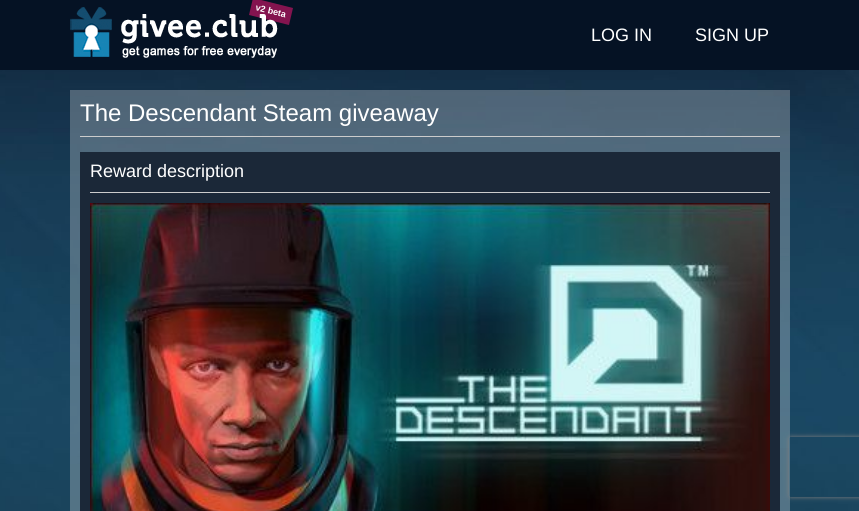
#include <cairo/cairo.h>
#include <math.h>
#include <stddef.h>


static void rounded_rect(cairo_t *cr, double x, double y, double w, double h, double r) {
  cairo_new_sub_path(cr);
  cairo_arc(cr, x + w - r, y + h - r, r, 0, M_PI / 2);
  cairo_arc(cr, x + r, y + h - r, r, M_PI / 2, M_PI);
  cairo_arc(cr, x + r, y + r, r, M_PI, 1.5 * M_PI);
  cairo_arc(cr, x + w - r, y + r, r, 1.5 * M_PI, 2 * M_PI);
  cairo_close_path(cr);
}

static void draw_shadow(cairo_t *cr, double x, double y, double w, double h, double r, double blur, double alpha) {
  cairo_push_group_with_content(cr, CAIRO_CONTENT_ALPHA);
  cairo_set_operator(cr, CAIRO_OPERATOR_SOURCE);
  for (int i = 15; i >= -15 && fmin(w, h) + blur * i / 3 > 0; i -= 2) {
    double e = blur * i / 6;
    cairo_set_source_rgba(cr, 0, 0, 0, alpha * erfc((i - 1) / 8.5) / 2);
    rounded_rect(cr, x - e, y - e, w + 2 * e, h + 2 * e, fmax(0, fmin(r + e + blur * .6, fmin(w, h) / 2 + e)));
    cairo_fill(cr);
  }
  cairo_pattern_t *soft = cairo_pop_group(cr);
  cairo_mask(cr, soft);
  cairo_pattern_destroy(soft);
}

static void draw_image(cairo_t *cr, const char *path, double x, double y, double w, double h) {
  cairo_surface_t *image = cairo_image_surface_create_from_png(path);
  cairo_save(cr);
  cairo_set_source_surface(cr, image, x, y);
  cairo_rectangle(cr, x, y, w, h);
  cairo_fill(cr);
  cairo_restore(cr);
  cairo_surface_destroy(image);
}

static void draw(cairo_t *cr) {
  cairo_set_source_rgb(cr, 1, 1, 1);
  cairo_paint(cr);
  draw_image(cr, "images/1.png", 0, 70, 859, 441);
  cairo_set_source_rgb(cr, 5 / 255.0, 18 / 255.0, 36 / 255.0);
  cairo_rectangle(cr, 0, 0, 859, 70);
  cairo_fill(cr);
  cairo_set_source_rgb(cr, 132 / 255.0, 20 / 255.0, 79 / 255.0);
  cairo_new_path(cr);
  cairo_move_to(cr, 253, -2);
  cairo_line_to(cr, 293, 8);
  cairo_line_to(cr, 289, 25);
  cairo_line_to(cr, 249, 15);
  cairo_close_path(cr);
  cairo_fill(cr);
  cairo_set_source_rgba(cr, 1, 1, 1, 0.25);
  cairo_rectangle(cr, 70, 90, 720, 421);
  cairo_fill(cr);
  cairo_set_source_rgb(cr, 204 / 255.0, 204 / 255.0, 204 / 255.0);
  cairo_rectangle(cr, 80, 136, 700, 1);
  cairo_fill(cr);
  cairo_set_source_rgb(cr, 27 / 255.0, 40 / 255.0, 56 / 255.0);
  cairo_rectangle(cr, 80, 152, 700, 359);
  cairo_fill(cr);
  cairo_set_source_rgb(cr, 204 / 255.0, 204 / 255.0, 204 / 255.0);
  cairo_rectangle(cr, 90, 192, 680, 1);
  cairo_fill(cr);
  draw_image(cr, "images/3.png", 90, 203, 680, 308);
  cairo_save(cr);
  cairo_set_fill_rule(cr, CAIRO_FILL_RULE_EVEN_ODD);
  cairo_new_path(cr);
  cairo_move_to(cr, 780, 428);
  cairo_line_to(cr, 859, 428);
  cairo_line_to(cr, 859, 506);
  cairo_line_to(cr, 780, 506);
  cairo_close_path(cr);
  cairo_move_to(cr, 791, 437);
  cairo_line_to(cr, 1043, 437);
  cairo_curve_to(cr, 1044, 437, 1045, 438, 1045, 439);
  cairo_line_to(cr, 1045, 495);
  cairo_curve_to(cr, 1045, 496, 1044, 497, 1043, 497);
  cairo_line_to(cr, 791, 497);
  cairo_curve_to(cr, 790, 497, 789, 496, 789, 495);
  cairo_line_to(cr, 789, 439);
  cairo_curve_to(cr, 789, 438, 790, 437, 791, 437);
  cairo_close_path(cr);
  cairo_clip(cr);
  cairo_set_source_rgb(cr, 128 / 255.0, 128 / 255.0, 128 / 255.0);
  draw_shadow(cr, 789, 437, 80, 60, 2, 2.5, 1);
  cairo_restore(cr);
  cairo_select_font_face(cr, "Liberation Sans", CAIRO_FONT_SLANT_NORMAL, CAIRO_FONT_WEIGHT_BOLD);
  cairo_set_font_size(cr, 9);
  cairo_set_source_rgb(cr, 1, 1, 1);
  cairo_save(cr);
  cairo_translate(cr, 255, 10);
  cairo_rotate(cr, 14 * M_PI / 180);
  cairo_move_to(cr, 0, 0);
  cairo_show_text(cr, "v2 beta");
  cairo_restore(cr);
  draw_image(cr, "images/2.png", 70, 7, 208, 51);
  cairo_select_font_face(cr, "Liberation Sans", CAIRO_FONT_SLANT_NORMAL, CAIRO_FONT_WEIGHT_NORMAL);
  cairo_set_font_size(cr, 18);
  cairo_move_to(cr, 591, 41);
  cairo_show_text(cr, "LOG IN");
  cairo_move_to(cr, 695, 41);
  cairo_show_text(cr, "SIGN UP");
  cairo_set_font_size(cr, 24);
  cairo_move_to(cr, 80, 121);
  cairo_show_text(cr, "The Descendant Steam giveaway");
  cairo_set_font_size(cr, 18);
  cairo_move_to(cr, 90, 177);
  cairo_show_text(cr, "Reward description");
}

int main(void) {
  cairo_surface_t *surface = cairo_image_surface_create(CAIRO_FORMAT_RGB24, 859, 511);
  cairo_t *cr = cairo_create(surface);
  cairo_font_options_t *options = cairo_font_options_create();
  cairo_font_options_set_hint_metrics(options, CAIRO_HINT_METRICS_OFF);
  cairo_font_options_set_hint_style(options, CAIRO_HINT_STYLE_NONE);
  cairo_set_font_options(cr, options);
  cairo_set_miter_limit(cr, 4);
  draw(cr);
  cairo_surface_write_to_png(surface, "out.png");
  cairo_font_options_destroy(options);
  cairo_destroy(cr);
  cairo_surface_destroy(surface);
  return 0;
}
